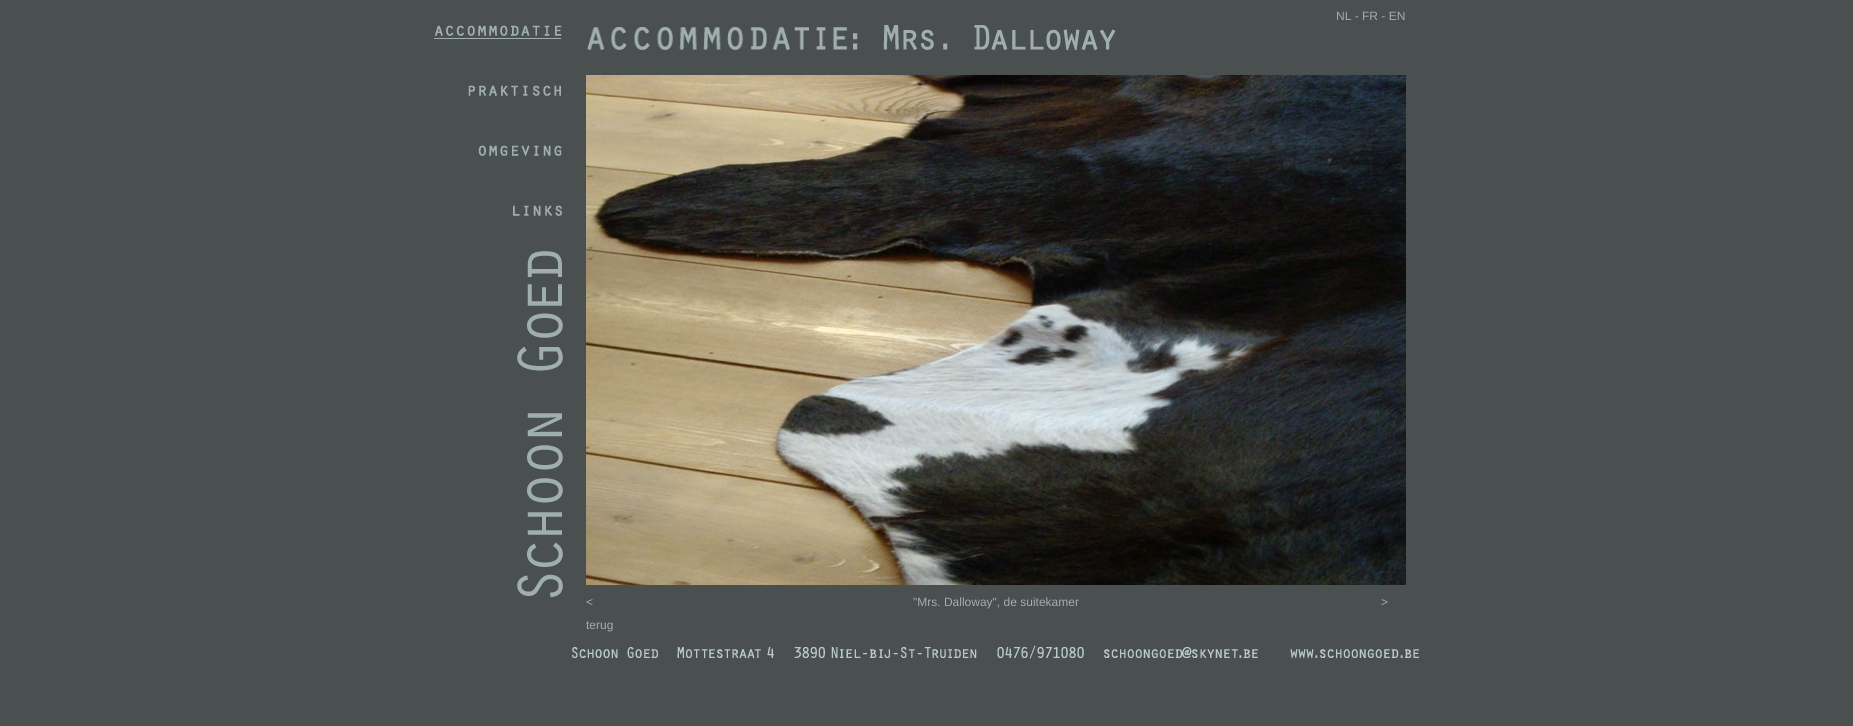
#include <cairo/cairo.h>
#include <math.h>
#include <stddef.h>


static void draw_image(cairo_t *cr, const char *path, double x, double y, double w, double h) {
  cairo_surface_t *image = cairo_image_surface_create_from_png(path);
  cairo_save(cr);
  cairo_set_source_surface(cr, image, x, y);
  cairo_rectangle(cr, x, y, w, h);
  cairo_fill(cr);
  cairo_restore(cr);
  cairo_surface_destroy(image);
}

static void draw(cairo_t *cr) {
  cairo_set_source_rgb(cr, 74 / 255.0, 79 / 255.0, 79 / 255.0);
  cairo_paint(cr);
  draw_image(cr, "images/1.png", 434, 25, 128, 14);
  draw_image(cr, "images/2.png", 468, 85, 93, 11);
  draw_image(cr, "images/3.png", 478, 145, 84, 11);
  draw_image(cr, "images/4.png", 513, 205, 49, 11);
  draw_image(cr, "images/5.png", 517, 251, 46, 347);
  draw_image(cr, "images/6.png", 587, 27, 261, 23);
  draw_image(cr, "images/7.png", 853, 25, 263, 25);
  draw_image(cr, "images/8.png", 586, 75, 820, 510);
  draw_image(cr, "images/9.png", 572, 647, 86, 11);
  draw_image(cr, "images/10.png", 677, 646, 97, 13);
  draw_image(cr, "images/11.png", 794, 647, 183, 12);
  draw_image(cr, "images/12.png", 997, 645, 87, 14);
  draw_image(cr, "images/13.png", 1104, 647, 154, 12);
  draw_image(cr, "images/14.png", 1290, 649, 129, 10);
  cairo_select_font_face(cr, "Liberation Sans", CAIRO_FONT_SLANT_NORMAL, CAIRO_FONT_WEIGHT_NORMAL);
  cairo_set_font_size(cr, 12);
  cairo_set_source_rgb(cr, 159 / 255.0, 175 / 255.0, 172 / 255.0);
  cairo_move_to(cr, 1336, 20);
  cairo_show_text(cr, "NL - FR - EN");
  cairo_move_to(cr, 586, 606);
  cairo_show_text(cr, "<");
  cairo_move_to(cr, 913, 606);
  cairo_show_text(cr, "\"Mrs. Dalloway\", de suitekamer");
  cairo_move_to(cr, 1381, 606);
  cairo_show_text(cr, ">");
  cairo_move_to(cr, 586, 629);
  cairo_show_text(cr, "terug");
}

int main(void) {
  cairo_surface_t *surface = cairo_image_surface_create(CAIRO_FORMAT_RGB24, 1853, 726);
  cairo_t *cr = cairo_create(surface);
  cairo_font_options_t *options = cairo_font_options_create();
  cairo_font_options_set_hint_metrics(options, CAIRO_HINT_METRICS_OFF);
  cairo_font_options_set_hint_style(options, CAIRO_HINT_STYLE_NONE);
  cairo_set_font_options(cr, options);
  cairo_set_miter_limit(cr, 4);
  draw(cr);
  cairo_surface_write_to_png(surface, "out.png");
  cairo_font_options_destroy(options);
  cairo_destroy(cr);
  cairo_surface_destroy(surface);
  return 0;
}
